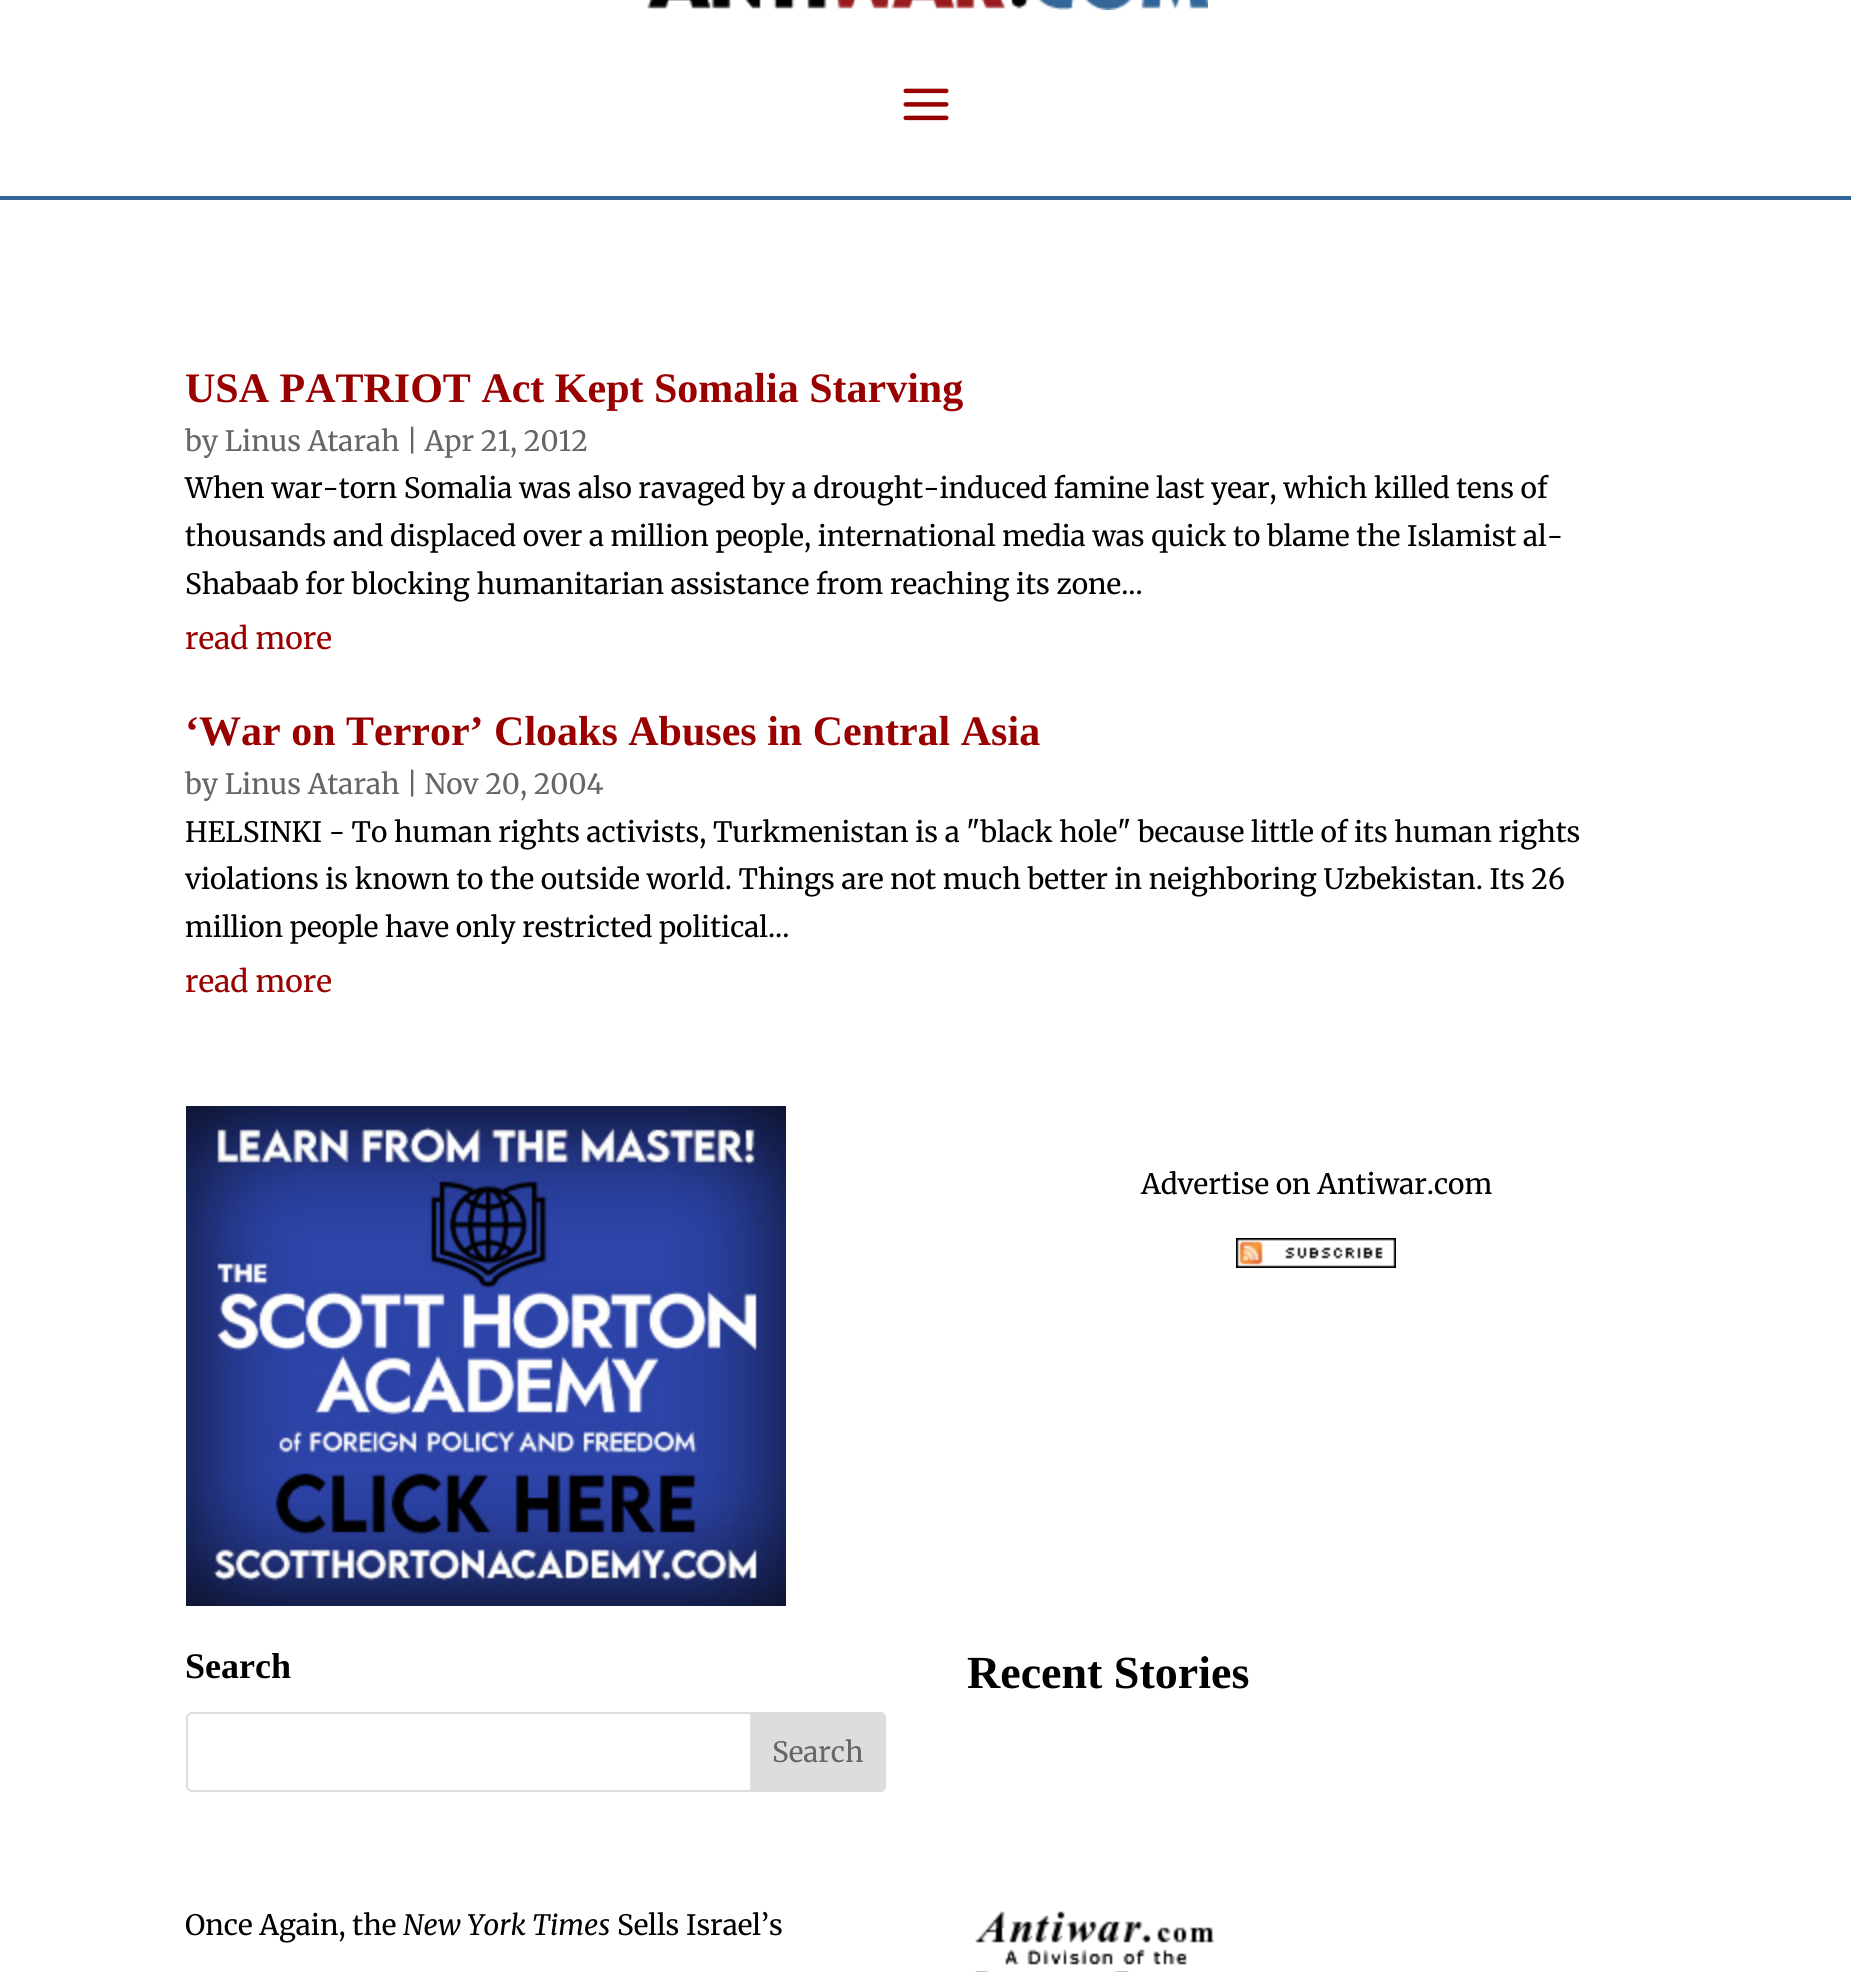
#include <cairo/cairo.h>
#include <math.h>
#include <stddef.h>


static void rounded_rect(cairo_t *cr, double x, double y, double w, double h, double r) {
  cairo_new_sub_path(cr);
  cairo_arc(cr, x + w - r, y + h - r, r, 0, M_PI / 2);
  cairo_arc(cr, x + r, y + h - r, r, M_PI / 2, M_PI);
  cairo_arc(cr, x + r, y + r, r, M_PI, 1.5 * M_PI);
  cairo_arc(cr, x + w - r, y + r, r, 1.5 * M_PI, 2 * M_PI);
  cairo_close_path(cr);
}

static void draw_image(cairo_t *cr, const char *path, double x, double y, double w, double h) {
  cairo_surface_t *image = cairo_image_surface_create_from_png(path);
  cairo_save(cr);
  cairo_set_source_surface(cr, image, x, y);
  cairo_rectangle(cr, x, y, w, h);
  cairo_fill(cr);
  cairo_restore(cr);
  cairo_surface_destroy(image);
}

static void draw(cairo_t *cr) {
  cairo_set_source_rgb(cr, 1, 1, 1);
  cairo_paint(cr);
  cairo_set_source_rgb(cr, 51 / 255.0, 102 / 255.0, 153 / 255.0);
  cairo_rectangle(cr, 0, 196, 1851, 4);
  cairo_fill(cr);
  draw_image(cr, "images/1.png", 647, 0, 561, 10);
  draw_image(cr, "images/2.png", 903, 88, 46, 33);
  draw_image(cr, "images/3.png", 186, 1106, 600, 500);
  draw_image(cr, "images/4.png", 1236, 1238, 160, 30);
  rounded_rect(cr, 187, 1713, 698, 78, 5);
  cairo_set_source_rgb(cr, 221 / 255.0, 221 / 255.0, 221 / 255.0);
  cairo_stroke(cr);
  cairo_new_path(cr);
  cairo_move_to(cr, 751, 1713);
  cairo_line_to(cr, 880, 1713);
  cairo_curve_to(cr, 883, 1713, 885, 1715, 885, 1718);
  cairo_line_to(cr, 885, 1786);
  cairo_curve_to(cr, 885, 1789, 883, 1791, 880, 1791);
  cairo_line_to(cr, 751, 1791);
  cairo_close_path(cr);
  cairo_fill_preserve(cr);
  cairo_stroke(cr);
  draw_image(cr, "images/5.png", 975, 1911, 240, 61);
  cairo_select_font_face(cr, "Liberation Serif", CAIRO_FONT_SLANT_NORMAL, CAIRO_FONT_WEIGHT_BOLD);
  cairo_set_font_size(cr, 42);
  cairo_set_source_rgb(cr, 153 / 255.0, 0, 0);
  cairo_move_to(cr, 185, 402);
  cairo_show_text(cr, "USA PATRIOT Act Kept Somalia Starving");
  cairo_select_font_face(cr, "Merriweather", CAIRO_FONT_SLANT_NORMAL, CAIRO_FONT_WEIGHT_NORMAL);
  cairo_set_font_size(cr, 28);
  cairo_set_source_rgb(cr, 102 / 255.0, 102 / 255.0, 102 / 255.0);
  cairo_move_to(cr, 185, 451);
  cairo_show_text(cr, "by Linus Atarah | Apr 21, 2012");
  cairo_set_source_rgb(cr, 0, 0, 0);
  cairo_move_to(cr, 185, 498);
  cairo_show_text(cr, "When war-torn Somalia was also ravaged by a drought-induced famine last year, which killed tens of");
  cairo_move_to(cr, 185, 546);
  cairo_show_text(cr, "thousands and displaced over a million people, international media was quick to blame the Islamist al-");
  cairo_move_to(cr, 185, 594);
  cairo_show_text(cr, "Shabaab for blocking humanitarian assistance from reaching its zone...");
  cairo_set_font_size(cr, 30);
  cairo_set_source_rgb(cr, 153 / 255.0, 0, 0);
  cairo_move_to(cr, 185, 649);
  cairo_show_text(cr, "read more");
  cairo_select_font_face(cr, "Liberation Serif", CAIRO_FONT_SLANT_NORMAL, CAIRO_FONT_WEIGHT_BOLD);
  cairo_set_font_size(cr, 42);
  cairo_move_to(cr, 185, 745);
  cairo_show_text(cr, "‘War on Terror’ Cloaks Abuses in Central Asia");
  cairo_select_font_face(cr, "Merriweather", CAIRO_FONT_SLANT_NORMAL, CAIRO_FONT_WEIGHT_NORMAL);
  cairo_set_font_size(cr, 28);
  cairo_set_source_rgb(cr, 102 / 255.0, 102 / 255.0, 102 / 255.0);
  cairo_move_to(cr, 185, 794);
  cairo_show_text(cr, "by Linus Atarah | Nov 20, 2004");
  cairo_set_source_rgb(cr, 0, 0, 0);
  cairo_move_to(cr, 185, 842);
  cairo_show_text(cr, "HELSINKI - To human rights activists, Turkmenistan is a \"black hole\" because little of its human rights");
  cairo_move_to(cr, 185, 889);
  cairo_show_text(cr, "violations is known to the outside world. Things are not much better in neighboring Uzbekistan. Its 26");
  cairo_move_to(cr, 185, 937);
  cairo_show_text(cr, "million people have only restricted political...");
  cairo_set_font_size(cr, 30);
  cairo_set_source_rgb(cr, 153 / 255.0, 0, 0);
  cairo_move_to(cr, 185, 992);
  cairo_show_text(cr, "read more");
  cairo_set_font_size(cr, 28);
  cairo_set_source_rgb(cr, 0, 0, 0);
  cairo_move_to(cr, 1141, 1194);
  cairo_show_text(cr, "Advertise on Antiwar.com");
  cairo_select_font_face(cr, "Liberation Serif", CAIRO_FONT_SLANT_NORMAL, CAIRO_FONT_WEIGHT_BOLD);
  cairo_set_font_size(cr, 36);
  cairo_move_to(cr, 185, 1678);
  cairo_show_text(cr, "Search");
  cairo_select_font_face(cr, "Merriweather", CAIRO_FONT_SLANT_NORMAL, CAIRO_FONT_WEIGHT_NORMAL);
  cairo_set_font_size(cr, 28);
  cairo_set_source_rgb(cr, 102 / 255.0, 102 / 255.0, 102 / 255.0);
  cairo_move_to(cr, 772, 1762);
  cairo_show_text(cr, "Search");
  cairo_select_font_face(cr, "Liberation Serif", CAIRO_FONT_SLANT_NORMAL, CAIRO_FONT_WEIGHT_BOLD);
  cairo_set_font_size(cr, 46);
  cairo_set_source_rgb(cr, 0, 0, 0);
  cairo_move_to(cr, 967, 1688);
  cairo_show_text(cr, "Recent Stories");
  cairo_select_font_face(cr, "Merriweather", CAIRO_FONT_SLANT_NORMAL, CAIRO_FONT_WEIGHT_NORMAL);
  cairo_set_font_size(cr, 28);
  cairo_move_to(cr, 185, 1935);
  cairo_show_text(cr, "Once Again, the");
  cairo_select_font_face(cr, "Merriweather", CAIRO_FONT_SLANT_ITALIC, CAIRO_FONT_WEIGHT_NORMAL);
  cairo_move_to(cr, 403, 1935);
  cairo_show_text(cr, "New York Times");
  cairo_select_font_face(cr, "Merriweather", CAIRO_FONT_SLANT_NORMAL, CAIRO_FONT_WEIGHT_NORMAL);
  cairo_move_to(cr, 617, 1935);
  cairo_show_text(cr, "Sells Israel’s");
}

int main(void) {
  cairo_surface_t *surface = cairo_image_surface_create(CAIRO_FORMAT_RGB24, 1851, 1972);
  cairo_t *cr = cairo_create(surface);
  cairo_font_options_t *options = cairo_font_options_create();
  cairo_font_options_set_hint_metrics(options, CAIRO_HINT_METRICS_OFF);
  cairo_font_options_set_hint_style(options, CAIRO_HINT_STYLE_NONE);
  cairo_set_font_options(cr, options);
  cairo_set_miter_limit(cr, 4);
  draw(cr);
  cairo_surface_write_to_png(surface, "out.png");
  cairo_font_options_destroy(options);
  cairo_destroy(cr);
  cairo_surface_destroy(surface);
  return 0;
}
